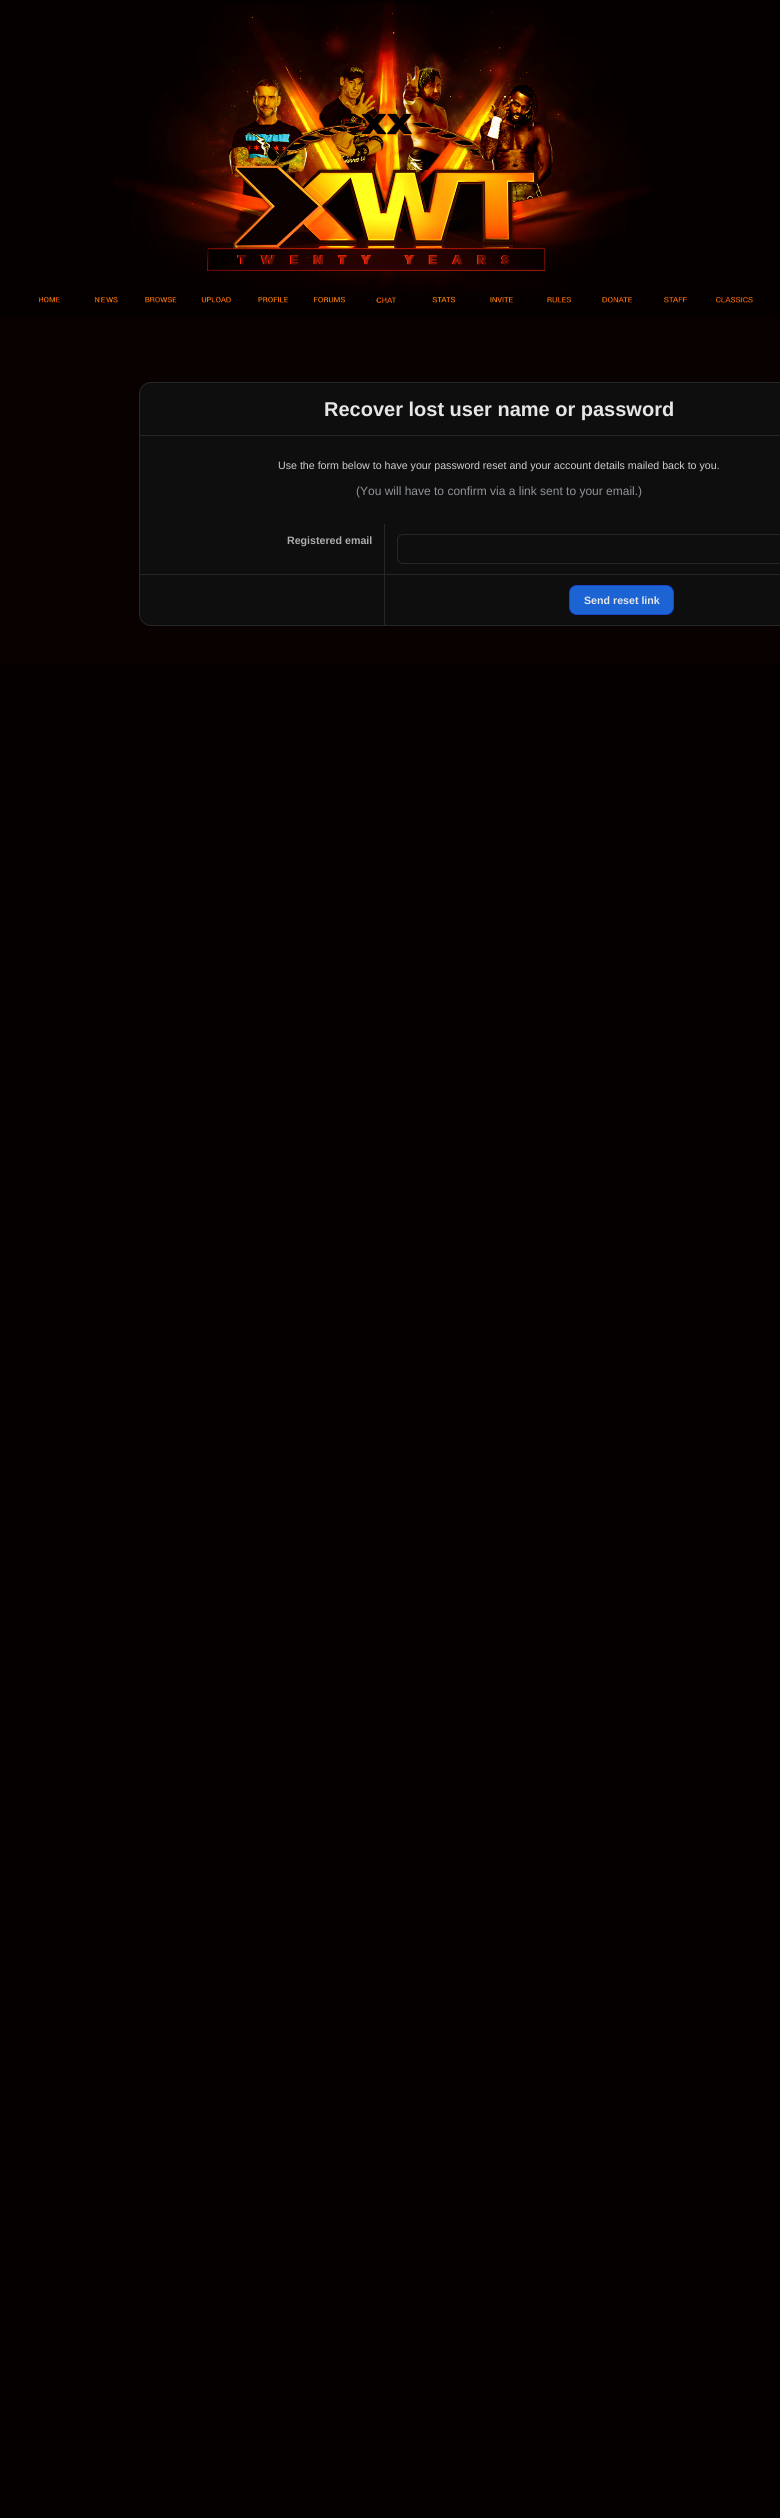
#include <cairo/cairo.h>
#include <math.h>
#include <stddef.h>


static void rounded_rect(cairo_t *cr, double x, double y, double w, double h, double r) {
  cairo_new_sub_path(cr);
  cairo_arc(cr, x + w - r, y + h - r, r, 0, M_PI / 2);
  cairo_arc(cr, x + r, y + h - r, r, M_PI / 2, M_PI);
  cairo_arc(cr, x + r, y + r, r, M_PI, 1.5 * M_PI);
  cairo_arc(cr, x + w - r, y + r, r, 1.5 * M_PI, 2 * M_PI);
  cairo_close_path(cr);
}

static void draw_image(cairo_t *cr, const char *path, double x, double y, double w, double h) {
  cairo_surface_t *image = cairo_image_surface_create_from_png(path);
  cairo_save(cr);
  cairo_set_source_surface(cr, image, x, y);
  cairo_rectangle(cr, x, y, w, h);
  cairo_fill(cr);
  cairo_restore(cr);
  cairo_surface_destroy(image);
}

static void draw(cairo_t *cr) {
  cairo_set_source_rgb(cr, 4 / 255.0, 0, 0);
  cairo_paint(cr);
  draw_image(cr, "images/1.png", 113, 0, 538, 281);
  draw_image(cr, "images/2.png", 38, 297, 22, 6);
  draw_image(cr, "images/3.png", 94, 297, 24, 6);
  draw_image(cr, "images/4.png", 145, 297, 32, 6);
  draw_image(cr, "images/5.png", 201, 297, 30, 6);
  draw_image(cr, "images/6.png", 249, 281, 52, 22);
  draw_image(cr, "images/7.png", 301, 281, 57, 22);
  draw_image(cr, "images/8.png", 358, 281, 57, 22);
  draw_image(cr, "images/9.png", 415, 281, 58, 22);
  draw_image(cr, "images/10.png", 473, 281, 60, 22);
  draw_image(cr, "images/11.png", 533, 281, 38, 22);
  draw_image(cr, "images/12.png", 602, 297, 31, 6);
  draw_image(cr, "images/13.png", 664, 297, 23, 6);
  draw_image(cr, "images/14.png", 716, 297, 37, 6);
  cairo_set_source_rgb(cr, 9 / 255.0, 1 / 255.0, 0);
  cairo_rectangle(cr, 0, 318, 780, 346);
  cairo_fill(cr);
  cairo_set_source_rgb(cr, 15 / 255.0, 14 / 255.0, 14 / 255.0);
  rounded_rect(cr, 139.5, 382.5, 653, 243, 11.5);
  cairo_fill_preserve(cr);
  cairo_set_source_rgb(cr, 39 / 255.0, 39 / 255.0, 39 / 255.0);
  cairo_set_line_width(cr, 1);
  cairo_stroke(cr);
  cairo_rectangle(cr, 140, 435, 640, 1);
  cairo_fill(cr);
  cairo_rectangle(cr, 384, 524, 1, 50);
  cairo_fill(cr);
  rounded_rect(cr, 397.5, 534.5, 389, 29, 5.5);
  cairo_stroke(cr);
  cairo_set_source_rgb(cr, 14 / 255.0, 14 / 255.0, 14 / 255.0);
  cairo_new_path(cr);
  cairo_move_to(cr, 140, 574);
  cairo_line_to(cr, 385, 574);
  cairo_line_to(cr, 385, 625);
  cairo_line_to(cr, 151, 625);
  cairo_curve_to(cr, 145, 625, 140, 620, 140, 614);
  cairo_close_path(cr);
  cairo_fill(cr);
  cairo_set_source_rgb(cr, 39 / 255.0, 39 / 255.0, 39 / 255.0);
  cairo_rectangle(cr, 140, 574, 640, 1);
  cairo_fill(cr);
  cairo_rectangle(cr, 384, 574, 1, 51);
  cairo_fill(cr);
  cairo_set_source_rgb(cr, 28 / 255.0, 100 / 255.0, 212 / 255.0);
  rounded_rect(cr, 569.5, 585.5, 104, 29, 7.5);
  cairo_fill_preserve(cr);
  cairo_set_source_rgb(cr, 25 / 255.0, 71 / 255.0, 202 / 255.0);
  cairo_stroke(cr);
  cairo_select_font_face(cr, "Liberation Sans", CAIRO_FONT_SLANT_NORMAL, CAIRO_FONT_WEIGHT_BOLD);
  cairo_set_font_size(cr, 20);
  cairo_set_source_rgb(cr, 230 / 255.0, 230 / 255.0, 230 / 255.0);
  cairo_move_to(cr, 324, 416);
  cairo_show_text(cr, "Recover lost user name or password");
  cairo_select_font_face(cr, "Liberation Sans", CAIRO_FONT_SLANT_NORMAL, CAIRO_FONT_WEIGHT_NORMAL);
  cairo_set_font_size(cr, 10.65);
  cairo_set_source_rgb(cr, 206 / 255.0, 205 / 255.0, 205 / 255.0);
  cairo_move_to(cr, 278, 469);
  cairo_show_text(cr, "Use the form below to have your password reset and your account details mailed back to you.");
  cairo_set_font_size(cr, 12);
  cairo_set_source_rgb(cr, 143 / 255.0, 147 / 255.0, 153 / 255.0);
  cairo_move_to(cr, 356, 495);
  cairo_show_text(cr, "(You will have to confirm via a link sent to your email.)");
  cairo_select_font_face(cr, "Liberation Sans", CAIRO_FONT_SLANT_NORMAL, CAIRO_FONT_WEIGHT_BOLD);
  cairo_set_font_size(cr, 10.65);
  cairo_set_source_rgb(cr, 172 / 255.0, 172 / 255.0, 172 / 255.0);
  cairo_move_to(cr, 287, 544);
  cairo_show_text(cr, "Registered email");
  cairo_set_source_rgb(cr, 230 / 255.0, 230 / 255.0, 230 / 255.0);
  cairo_move_to(cr, 584, 604);
  cairo_show_text(cr, "Send reset link");
}

int main(void) {
  cairo_surface_t *surface = cairo_image_surface_create(CAIRO_FORMAT_RGB24, 780, 2518);
  cairo_t *cr = cairo_create(surface);
  cairo_font_options_t *options = cairo_font_options_create();
  cairo_font_options_set_hint_metrics(options, CAIRO_HINT_METRICS_OFF);
  cairo_font_options_set_hint_style(options, CAIRO_HINT_STYLE_NONE);
  cairo_set_font_options(cr, options);
  cairo_set_miter_limit(cr, 4);
  draw(cr);
  cairo_surface_write_to_png(surface, "out.png");
  cairo_font_options_destroy(options);
  cairo_destroy(cr);
  cairo_surface_destroy(surface);
  return 0;
}
